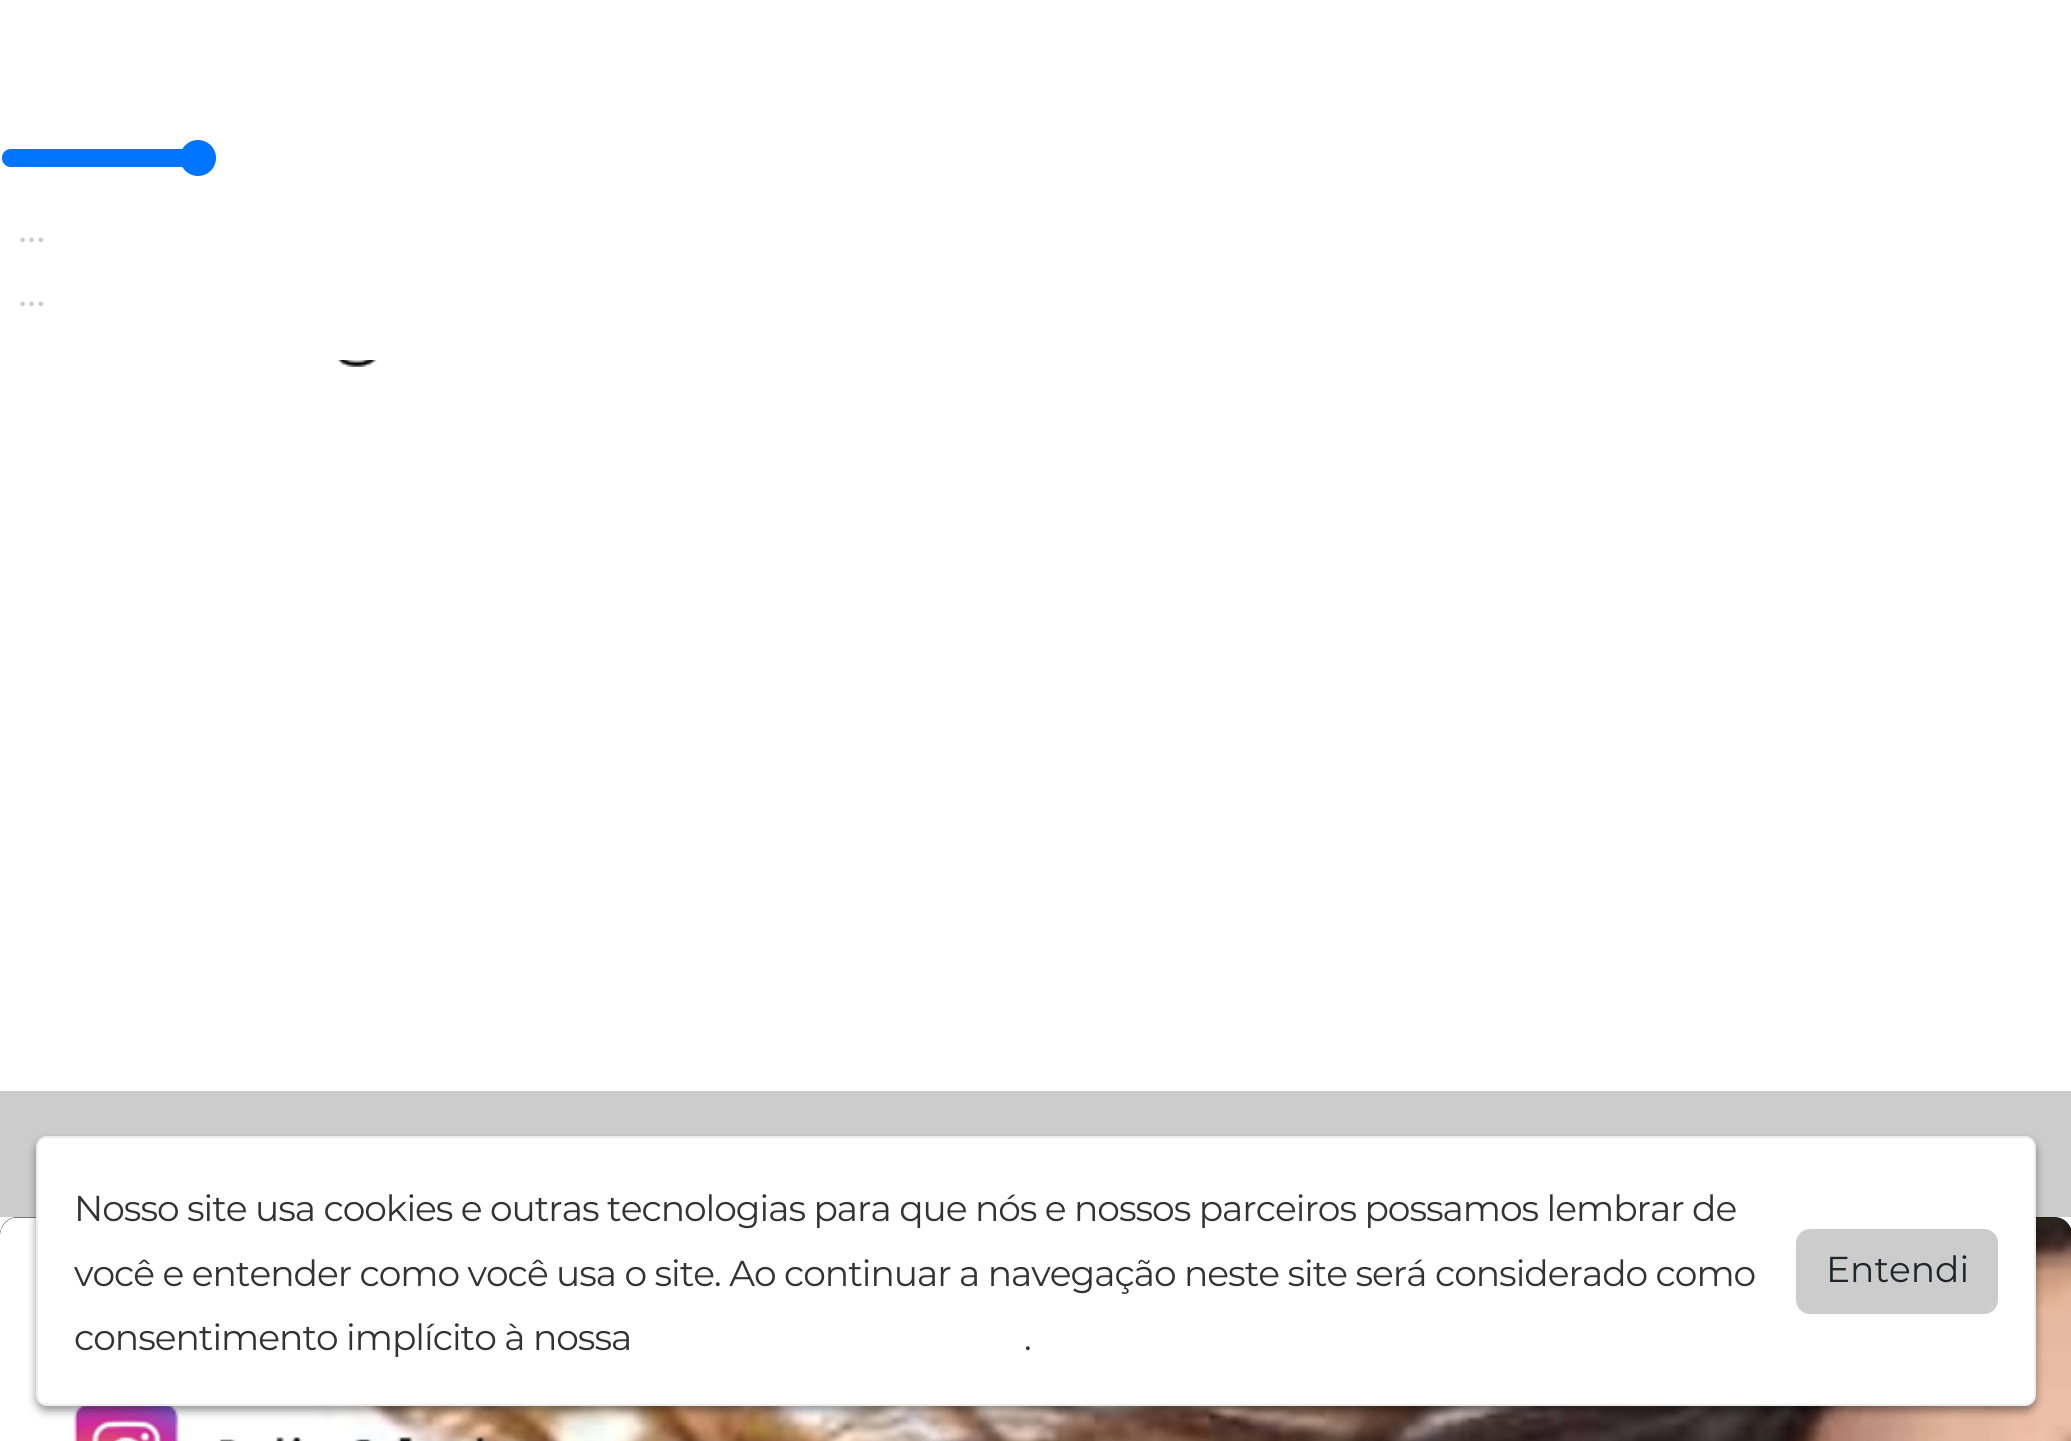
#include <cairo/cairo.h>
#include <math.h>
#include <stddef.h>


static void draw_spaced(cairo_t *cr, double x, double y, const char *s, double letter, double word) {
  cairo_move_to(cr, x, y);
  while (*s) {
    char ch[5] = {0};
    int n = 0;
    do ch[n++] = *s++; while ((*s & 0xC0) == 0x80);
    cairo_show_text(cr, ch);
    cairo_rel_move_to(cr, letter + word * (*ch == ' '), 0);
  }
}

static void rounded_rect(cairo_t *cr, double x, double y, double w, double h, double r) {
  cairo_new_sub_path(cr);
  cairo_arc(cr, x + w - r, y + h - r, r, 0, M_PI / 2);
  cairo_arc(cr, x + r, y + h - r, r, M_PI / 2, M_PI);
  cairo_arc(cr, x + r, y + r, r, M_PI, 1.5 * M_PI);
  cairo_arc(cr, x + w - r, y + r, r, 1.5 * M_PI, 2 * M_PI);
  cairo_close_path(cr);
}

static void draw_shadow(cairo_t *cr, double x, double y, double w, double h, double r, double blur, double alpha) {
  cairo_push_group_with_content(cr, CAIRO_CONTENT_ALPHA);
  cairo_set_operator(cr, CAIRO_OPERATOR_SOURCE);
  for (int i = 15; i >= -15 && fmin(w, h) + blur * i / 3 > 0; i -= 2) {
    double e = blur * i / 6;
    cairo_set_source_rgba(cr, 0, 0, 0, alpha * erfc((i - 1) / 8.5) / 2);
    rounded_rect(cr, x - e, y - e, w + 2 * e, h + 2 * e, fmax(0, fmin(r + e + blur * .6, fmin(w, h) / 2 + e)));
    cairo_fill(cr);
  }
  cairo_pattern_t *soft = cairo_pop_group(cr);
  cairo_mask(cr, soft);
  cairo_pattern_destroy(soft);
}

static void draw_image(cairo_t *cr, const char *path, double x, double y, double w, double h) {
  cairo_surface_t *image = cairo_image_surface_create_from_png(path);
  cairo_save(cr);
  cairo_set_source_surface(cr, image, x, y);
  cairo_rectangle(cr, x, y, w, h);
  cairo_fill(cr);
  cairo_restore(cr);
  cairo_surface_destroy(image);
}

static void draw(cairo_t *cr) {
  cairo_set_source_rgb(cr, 1, 1, 1);
  cairo_paint(cr);
  rounded_rect(cr, 3, 150, 212, 16, 8);
  cairo_set_source_rgb(cr, 178 / 255.0, 178 / 255.0, 178 / 255.0);
  cairo_stroke(cr);
  cairo_set_source_rgb(cr, 0, 117 / 255.0, 1);
  cairo_new_path(cr);
  cairo_move_to(cr, 11, 149);
  cairo_line_to(cr, 198, 149);
  cairo_line_to(cr, 198, 167);
  cairo_line_to(cr, 11, 167);
  cairo_curve_to(cr, 6, 167, 2, 163, 2, 158);
  cairo_curve_to(cr, 2, 153, 6, 149, 11, 149);
  cairo_close_path(cr);
  cairo_fill(cr);
  cairo_arc(cr, 198, 158, 18, 0, 2 * M_PI);
  cairo_fill(cr);
  draw_image(cr, "images/1.png", 337, 360, 40, 7);
  cairo_set_source_rgb(cr, 204 / 255.0, 204 / 255.0, 204 / 255.0);
  cairo_rectangle(cr, 0, 1091, 2071, 126);
  cairo_fill(cr);
  cairo_set_source_rgb(cr, 21 / 255.0, 21 / 255.0, 21 / 255.0);
  rounded_rect(cr, 0, 1217, 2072, 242, 18);
  cairo_fill(cr);
  draw_image(cr, "images/2.png", 0, 1217, 2071, 224);
  cairo_set_source_rgb(cr, 0, 0, 0);
  draw_shadow(cr, 36, 1141, 2000, 270, 11, 4.5, 0.4);
  cairo_set_source_rgb(cr, 1, 1, 1);
  rounded_rect(cr, 37, 1137, 1998, 268, 10);
  cairo_fill_preserve(cr);
  cairo_set_source_rgb(cr, 238 / 255.0, 238 / 255.0, 238 / 255.0);
  cairo_stroke(cr);
  cairo_set_source_rgb(cr, 204 / 255.0, 204 / 255.0, 204 / 255.0);
  rounded_rect(cr, 1796, 1229, 202, 85, 14);
  cairo_fill(cr);
  cairo_select_font_face(cr, "Montserrat", CAIRO_FONT_SLANT_NORMAL, CAIRO_FONT_WEIGHT_NORMAL);
  cairo_set_font_size(cr, 43);
  cairo_move_to(cr, 18, 242);
  cairo_show_text(cr, "...");
  cairo_move_to(cr, 18, 306);
  cairo_show_text(cr, "...");
  cairo_set_font_size(cr, 36);
  cairo_set_source_rgb(cr, 51 / 255.0, 51 / 255.0, 51 / 255.0);
  draw_spaced(cr, 74, 1221, "Nosso site usa cookies e outras tecnologias para que nós e nossos parceiros possamos lembrar de", -1, 0);
  draw_spaced(cr, 74, 1286, "você e entender como você usa o site. Ao continuar a navegação neste site será considerado como", -1, 0);
  draw_spaced(cr, 74, 1350, "consentimento implícito à nossa", -1, 0);
  draw_spaced(cr, 1024, 1350, ".", -1, 0);
  cairo_set_source_rgb(cr, 33 / 255.0, 37 / 255.0, 41 / 255.0);
  cairo_move_to(cr, 1826, 1282);
  cairo_show_text(cr, "Entendi");
}

int main(void) {
  cairo_surface_t *surface = cairo_image_surface_create(CAIRO_FORMAT_RGB24, 2071, 1441);
  cairo_t *cr = cairo_create(surface);
  cairo_font_options_t *options = cairo_font_options_create();
  cairo_font_options_set_hint_metrics(options, CAIRO_HINT_METRICS_OFF);
  cairo_font_options_set_hint_style(options, CAIRO_HINT_STYLE_NONE);
  cairo_set_font_options(cr, options);
  cairo_set_miter_limit(cr, 4);
  draw(cr);
  cairo_surface_write_to_png(surface, "out.png");
  cairo_font_options_destroy(options);
  cairo_destroy(cr);
  cairo_surface_destroy(surface);
  return 0;
}
